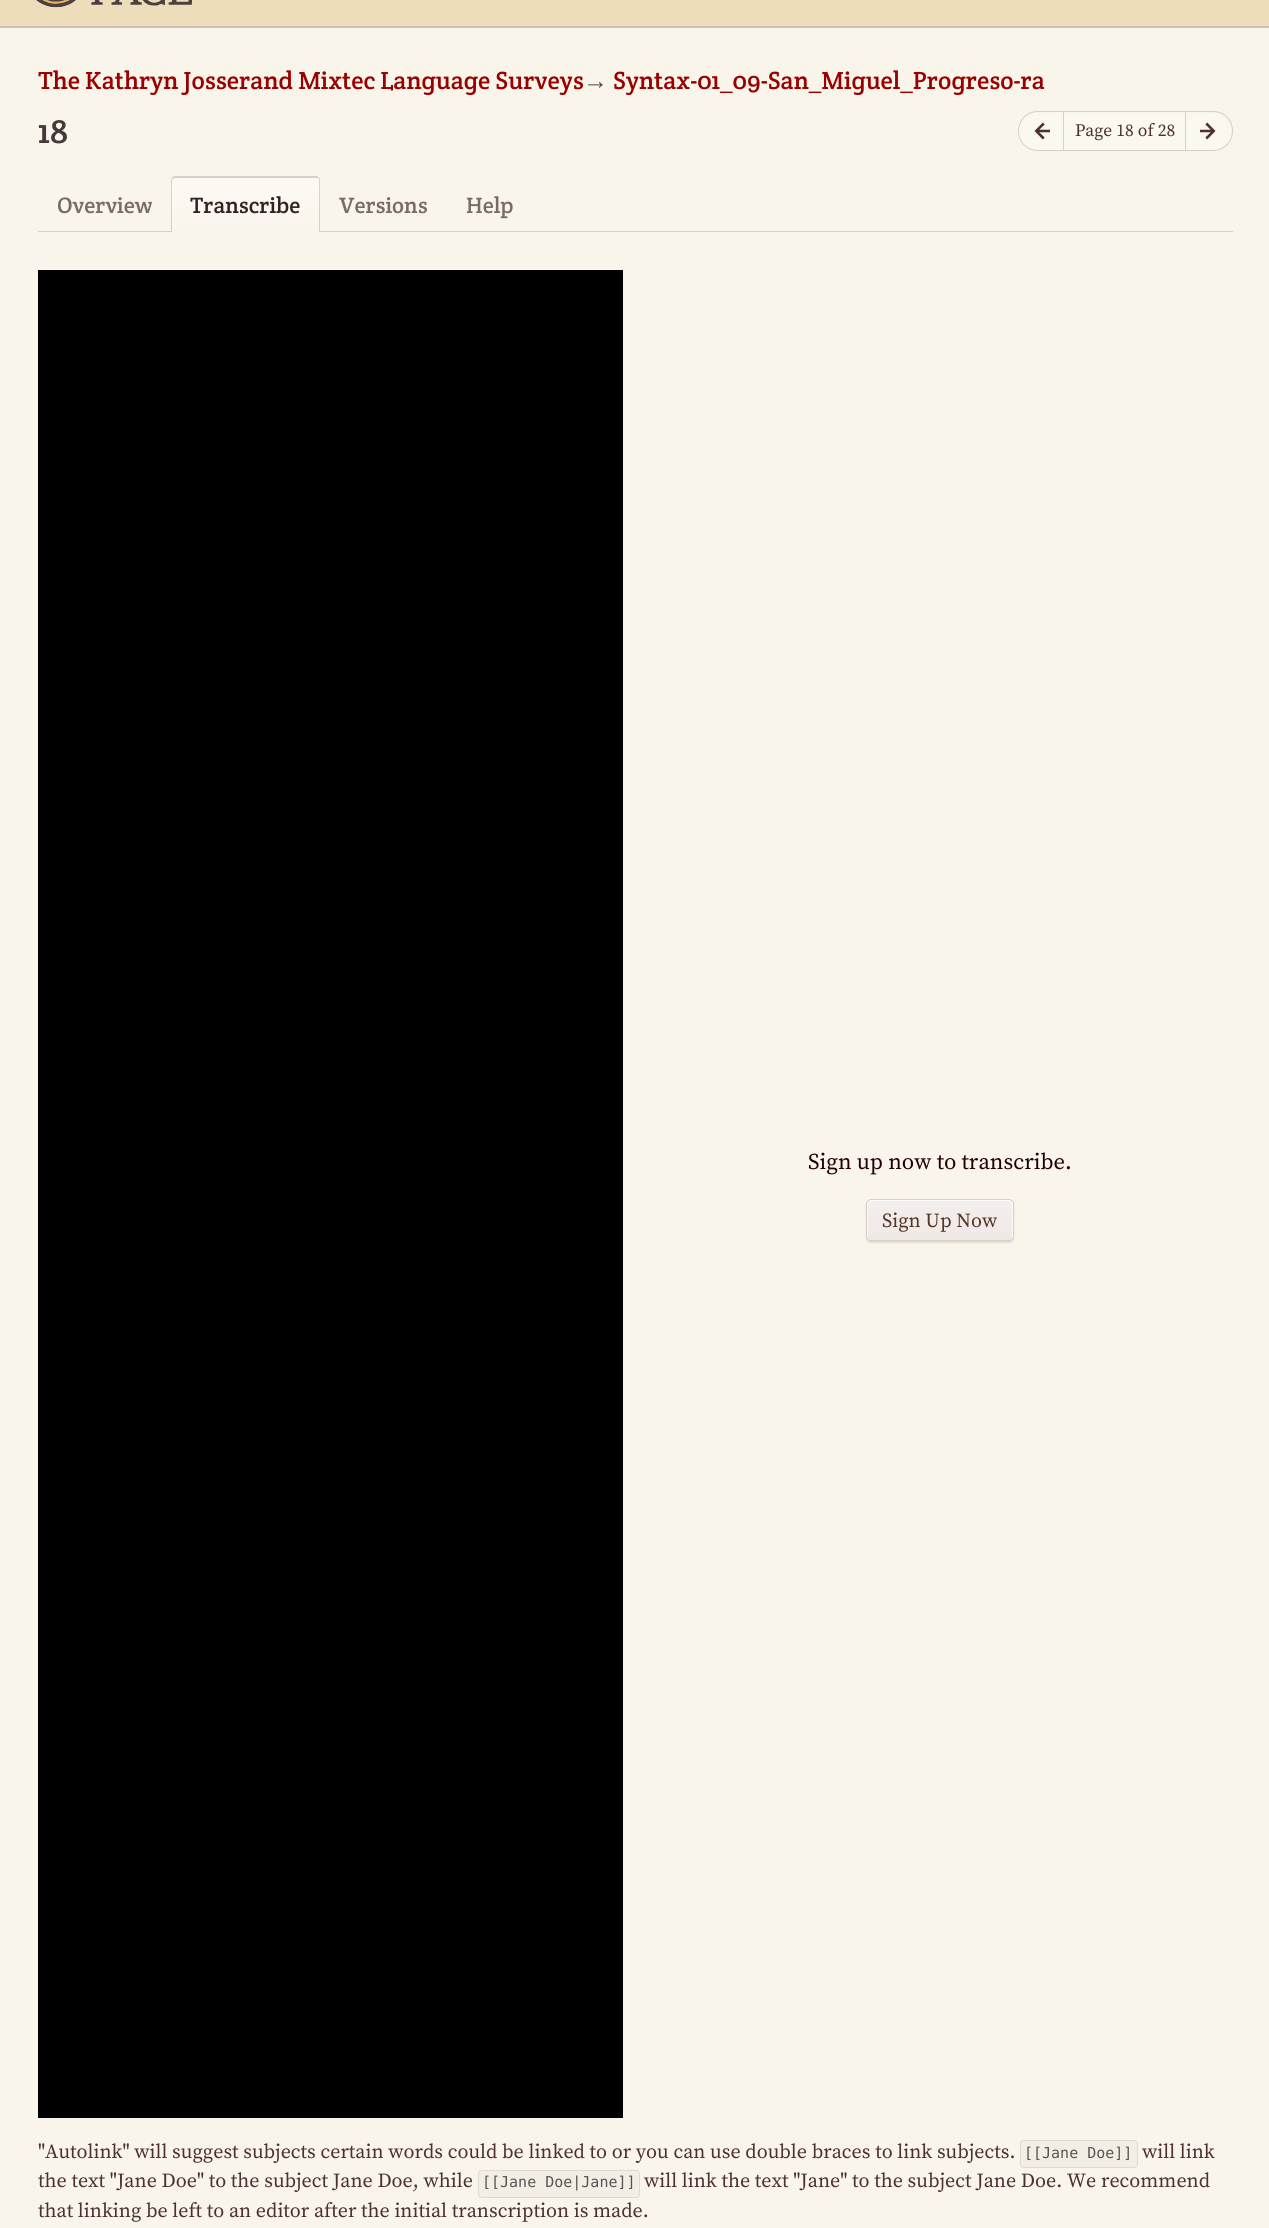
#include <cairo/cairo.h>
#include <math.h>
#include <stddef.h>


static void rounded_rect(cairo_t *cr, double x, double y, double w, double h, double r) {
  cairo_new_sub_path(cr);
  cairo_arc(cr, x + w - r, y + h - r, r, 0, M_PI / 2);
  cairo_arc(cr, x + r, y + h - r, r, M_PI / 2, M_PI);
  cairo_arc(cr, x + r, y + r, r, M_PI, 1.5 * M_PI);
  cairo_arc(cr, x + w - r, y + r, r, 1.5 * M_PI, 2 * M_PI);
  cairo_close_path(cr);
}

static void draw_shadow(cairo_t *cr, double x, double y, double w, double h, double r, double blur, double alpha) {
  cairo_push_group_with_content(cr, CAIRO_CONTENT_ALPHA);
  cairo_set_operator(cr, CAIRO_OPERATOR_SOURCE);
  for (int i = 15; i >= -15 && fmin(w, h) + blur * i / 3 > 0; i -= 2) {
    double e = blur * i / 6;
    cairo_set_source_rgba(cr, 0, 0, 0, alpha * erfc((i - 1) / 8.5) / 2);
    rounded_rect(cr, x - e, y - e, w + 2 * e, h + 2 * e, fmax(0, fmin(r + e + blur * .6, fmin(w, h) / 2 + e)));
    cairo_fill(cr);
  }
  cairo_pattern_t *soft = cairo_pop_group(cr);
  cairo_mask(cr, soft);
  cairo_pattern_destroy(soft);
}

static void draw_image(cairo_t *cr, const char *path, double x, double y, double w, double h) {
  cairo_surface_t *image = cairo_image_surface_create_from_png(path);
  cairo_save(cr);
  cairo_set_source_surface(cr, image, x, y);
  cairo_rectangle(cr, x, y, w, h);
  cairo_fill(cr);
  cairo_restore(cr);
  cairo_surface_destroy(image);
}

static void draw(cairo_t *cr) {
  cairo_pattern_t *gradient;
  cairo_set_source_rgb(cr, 250 / 255.0, 245 / 255.0, 235 / 255.0);
  cairo_paint(cr);
  cairo_set_source_rgb(cr, 200 / 255.0, 196 / 255.0, 188 / 255.0);
  cairo_rectangle(cr, 0, 26, 1269, 2);
  cairo_fill(cr);
  cairo_set_source_rgb(cr, 238 / 255.0, 221 / 255.0, 187 / 255.0);
  cairo_rectangle(cr, 0, 0, 1269, 26);
  cairo_fill(cr);
  draw_image(cr, "images/1.png", 36, 0, 157, 8);
  cairo_set_source_rgb(cr, 251 / 255.0, 248 / 255.0, 240 / 255.0);
  cairo_new_path(cr);
  cairo_move_to(cr, 1037.5, 113);
  cairo_line_to(cr, 1063, 113);
  cairo_line_to(cr, 1063, 150);
  cairo_line_to(cr, 1037.5, 150);
  cairo_curve_to(cr, 1027.5, 150, 1019, 141.5, 1019, 131.5);
  cairo_curve_to(cr, 1019, 121.5, 1027.5, 113, 1037.5, 113);
  cairo_close_path(cr);
  cairo_fill(cr);
  cairo_new_path(cr);
  cairo_move_to(cr, 1038, 111.5);
  cairo_line_to(cr, 1063.5, 111.5);
  cairo_line_to(cr, 1063.5, 150.5);
  cairo_line_to(cr, 1038, 150.5);
  cairo_curve_to(cr, 1027, 150.5, 1018.5, 142, 1018.5, 131);
  cairo_curve_to(cr, 1018.5, 120, 1027, 111.5, 1038, 111.5);
  cairo_close_path(cr);
  cairo_set_source_rgb(cr, 213 / 255.0, 208 / 255.0, 200 / 255.0);
  cairo_set_line_width(cr, 1);
  cairo_stroke(cr);
  draw_image(cr, "images/2.png", 1034, 122, 16, 18);
  cairo_set_source_rgb(cr, 251 / 255.0, 248 / 255.0, 240 / 255.0);
  cairo_rectangle(cr, 1064, 113, 121, 37);
  cairo_fill(cr);
  cairo_set_source_rgb(cr, 213 / 255.0, 208 / 255.0, 200 / 255.0);
  cairo_rectangle(cr, 1064, 111, 121, 1);
  cairo_fill(cr);
  cairo_rectangle(cr, 1064, 150, 121, 1);
  cairo_fill(cr);
  cairo_set_source_rgb(cr, 251 / 255.0, 248 / 255.0, 240 / 255.0);
  cairo_new_path(cr);
  cairo_move_to(cr, 1186, 113);
  cairo_line_to(cr, 1212.5, 113);
  cairo_curve_to(cr, 1222.5, 113, 1231, 121.5, 1231, 131.5);
  cairo_curve_to(cr, 1231, 141.5, 1222.5, 150, 1212.5, 150);
  cairo_line_to(cr, 1186, 150);
  cairo_close_path(cr);
  cairo_fill(cr);
  cairo_new_path(cr);
  cairo_move_to(cr, 1185.5, 111.5);
  cairo_line_to(cr, 1213, 111.5);
  cairo_curve_to(cr, 1224, 111.5, 1232.5, 120, 1232.5, 131);
  cairo_curve_to(cr, 1232.5, 142, 1224, 150.5, 1213, 150.5);
  cairo_line_to(cr, 1185.5, 150.5);
  cairo_close_path(cr);
  cairo_set_source_rgb(cr, 213 / 255.0, 208 / 255.0, 200 / 255.0);
  cairo_stroke(cr);
  draw_image(cr, "images/3.png", 1200, 122, 16, 18);
  cairo_rectangle(cr, 38, 231, 1195, 1);
  cairo_fill(cr);
  gradient = cairo_pattern_create_linear(246, 178, 246, 233);
  cairo_pattern_add_color_stop_rgba(gradient, 0, 253 / 255.0, 250 / 255.0, 245 / 255.0, 1);
  cairo_pattern_add_color_stop_rgba(gradient, 1, 250 / 255.0, 245 / 255.0, 235 / 255.0, 1);
  cairo_set_source(cr, gradient);
  cairo_pattern_destroy(gradient);
  cairo_rectangle(cr, 171, 178, 149, 54);
  cairo_fill(cr);
  cairo_set_source_rgba(cr, 0, 0, 0, 0.15);
  cairo_set_fill_rule(cr, CAIRO_FILL_RULE_EVEN_ODD);
  cairo_new_path(cr);
  cairo_move_to(cr, 175, 176);
  cairo_line_to(cr, 316, 176);
  cairo_curve_to(cr, 318, 176, 320, 178, 320, 180);
  cairo_line_to(cr, 320, 232);
  cairo_line_to(cr, 171, 232);
  cairo_line_to(cr, 171, 180);
  cairo_curve_to(cr, 171, 178, 173, 176, 175, 176);
  cairo_close_path(cr);
  cairo_move_to(cr, 175, 178);
  cairo_line_to(cr, 316, 178);
  cairo_curve_to(cr, 318, 178, 319, 179, 319, 180);
  cairo_line_to(cr, 319, 232);
  cairo_line_to(cr, 172, 232);
  cairo_line_to(cr, 172, 180);
  cairo_curve_to(cr, 172, 179, 174, 178, 175, 178);
  cairo_close_path(cr);
  cairo_fill(cr);
  cairo_set_source_rgb(cr, 0, 0, 0);
  cairo_rectangle(cr, 38, 270, 585, 1848);
  cairo_fill(cr);
  cairo_save(cr);
  cairo_new_path(cr);
  cairo_move_to(cr, 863, 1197);
  cairo_line_to(cr, 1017, 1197);
  cairo_line_to(cr, 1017, 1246);
  cairo_line_to(cr, 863, 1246);
  cairo_close_path(cr);
  cairo_move_to(cr, 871, 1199);
  cairo_line_to(cr, 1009, 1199);
  cairo_curve_to(cr, 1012, 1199, 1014, 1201, 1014, 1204);
  cairo_line_to(cr, 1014, 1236);
  cairo_curve_to(cr, 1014, 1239, 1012, 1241, 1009, 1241);
  cairo_line_to(cr, 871, 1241);
  cairo_curve_to(cr, 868, 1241, 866, 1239, 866, 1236);
  cairo_line_to(cr, 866, 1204);
  cairo_curve_to(cr, 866, 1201, 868, 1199, 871, 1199);
  cairo_close_path(cr);
  cairo_clip(cr);
  cairo_set_source_rgb(cr, 0, 0, 0);
  draw_shadow(cr, 866, 1200, 148, 43, 5, 0.5, 0.1);
  cairo_restore(cr);
  cairo_set_source_rgb(cr, 239 / 255.0, 233 / 255.0, 230 / 255.0);
  rounded_rect(cr, 868, 1200, 145, 40, 4);
  cairo_fill(cr);
  gradient = cairo_pattern_create_linear(940, 1200, 940, 1240);
  cairo_pattern_add_color_stop_rgba(gradient, 0, 1, 1, 1, 0.3);
  cairo_pattern_add_color_stop_rgba(gradient, 1, 1, 1, 1, 0);
  cairo_set_source(cr, gradient);
  cairo_pattern_destroy(gradient);
  rounded_rect(cr, 868, 1200, 145, 40, 4);
  cairo_fill(cr);
  cairo_set_source_rgba(cr, 1, 1, 1, 0.8);
  cairo_set_fill_rule(cr, CAIRO_FILL_RULE_WINDING);
  cairo_new_path(cr);
  cairo_move_to(cr, 871, 1201);
  cairo_line_to(cr, 1009, 1201);
  cairo_curve_to(cr, 1011, 1201, 1012, 1203, 1012, 1205);
  cairo_line_to(cr, 1012, 1239);
  cairo_curve_to(cr, 1013, 1238, 1013, 1237, 1013, 1236);
  cairo_line_to(cr, 1013, 1204);
  cairo_curve_to(cr, 1013, 1202, 1011, 1200, 1009, 1200);
  cairo_line_to(cr, 872, 1200);
  cairo_curve_to(cr, 870, 1200, 868, 1202, 868, 1204);
  cairo_line_to(cr, 868, 1205);
  cairo_curve_to(cr, 868, 1203, 869, 1201, 871, 1201);
  cairo_close_path(cr);
  cairo_fill(cr);
  rounded_rect(cr, 866.5, 1199.5, 147, 41, 4.5);
  cairo_set_source_rgba(cr, 0, 0, 0, 0.15);
  cairo_stroke(cr);
  cairo_set_source_rgb(cr, 243 / 255.0, 238 / 255.0, 228 / 255.0);
  rounded_rect(cr, 1020.5, 2140.5, 117, 27, 3.5);
  cairo_fill_preserve(cr);
  cairo_set_source_rgb(cr, 224 / 255.0, 219 / 255.0, 210 / 255.0);
  cairo_stroke(cr);
  cairo_set_source_rgb(cr, 243 / 255.0, 238 / 255.0, 228 / 255.0);
  rounded_rect(cr, 478.5, 2170.5, 161, 27, 3.5);
  cairo_fill_preserve(cr);
  cairo_set_source_rgb(cr, 224 / 255.0, 219 / 255.0, 210 / 255.0);
  cairo_stroke(cr);
  cairo_select_font_face(cr, "Crete Round", CAIRO_FONT_SLANT_NORMAL, CAIRO_FONT_WEIGHT_NORMAL);
  cairo_set_font_size(cr, 25);
  cairo_set_source_rgb(cr, 153 / 255.0, 0, 0);
  cairo_move_to(cr, 38, 89);
  cairo_show_text(cr, "The Kathryn Josserand Mixtec Language Surveys");
  cairo_select_font_face(cr, "Liberation Serif", CAIRO_FONT_SLANT_NORMAL, CAIRO_FONT_WEIGHT_NORMAL);
  cairo_set_source_rgb(cr, 99 / 255.0, 74 / 255.0, 71 / 255.0);
  cairo_move_to(cr, 583, 89);
  cairo_show_text(cr, "→");
  cairo_select_font_face(cr, "Crete Round", CAIRO_FONT_SLANT_NORMAL, CAIRO_FONT_WEIGHT_NORMAL);
  cairo_set_source_rgb(cr, 153 / 255.0, 0, 0);
  cairo_move_to(cr, 613, 89);
  cairo_show_text(cr, "Syntax-01_09-San_Miguel_Progreso-ra");
  cairo_set_font_size(cr, 35);
  cairo_set_source_rgb(cr, 69 / 255.0, 57 / 255.0, 57 / 255.0);
  cairo_move_to(cr, 38, 143);
  cairo_show_text(cr, "18");
  cairo_select_font_face(cr, "Source Serif Pro", CAIRO_FONT_SLANT_NORMAL, CAIRO_FONT_WEIGHT_NORMAL);
  cairo_set_font_size(cr, 17.5);
  cairo_set_source_rgb(cr, 77 / 255.0, 49 / 255.0, 47 / 255.0);
  cairo_move_to(cr, 1075, 136);
  cairo_show_text(cr, "Page 18 of 28");
  cairo_select_font_face(cr, "Crete Round", CAIRO_FONT_SLANT_NORMAL, CAIRO_FONT_WEIGHT_NORMAL);
  cairo_set_font_size(cr, 22.5);
  cairo_set_source_rgb(cr, 121 / 255.0, 108 / 255.0, 104 / 255.0);
  cairo_move_to(cr, 57, 213);
  cairo_show_text(cr, "Overview");
  cairo_set_source_rgb(cr, 51 / 255.0, 34 / 255.0, 34 / 255.0);
  cairo_move_to(cr, 190, 213);
  cairo_show_text(cr, "Transcribe");
  cairo_set_source_rgb(cr, 121 / 255.0, 108 / 255.0, 104 / 255.0);
  cairo_move_to(cr, 339, 213);
  cairo_show_text(cr, "Versions");
  cairo_move_to(cr, 466, 213);
  cairo_show_text(cr, "Help");
  cairo_select_font_face(cr, "Source Serif Pro", CAIRO_FONT_SLANT_NORMAL, CAIRO_FONT_WEIGHT_NORMAL);
  cairo_set_source_rgb(cr, 34 / 255.0, 0, 0);
  cairo_move_to(cr, 808, 1169);
  cairo_show_text(cr, "Sign up now to transcribe.");
  cairo_set_font_size(cr, 20);
  cairo_set_source_rgb(cr, 85 / 255.0, 51 / 255.0, 34 / 255.0);
  cairo_move_to(cr, 882, 1227);
  cairo_show_text(cr, "Sign Up Now");
  cairo_set_source_rgb(cr, 77 / 255.0, 49 / 255.0, 47 / 255.0);
  cairo_move_to(cr, 38, 2158);
  cairo_show_text(cr, "\"Autolink\" will suggest subjects certain words could be linked to or you can use double braces to link subjects.");
  cairo_select_font_face(cr, "DejaVu Sans Mono", CAIRO_FONT_SLANT_NORMAL, CAIRO_FONT_WEIGHT_NORMAL);
  cairo_set_font_size(cr, 15);
  cairo_set_source_rgb(cr, 85 / 255.0, 85 / 255.0, 85 / 255.0);
  cairo_move_to(cr, 1024, 2158);
  cairo_show_text(cr, "[[Jane Doe]]");
  cairo_select_font_face(cr, "Source Serif Pro", CAIRO_FONT_SLANT_NORMAL, CAIRO_FONT_WEIGHT_NORMAL);
  cairo_set_font_size(cr, 20);
  cairo_set_source_rgb(cr, 77 / 255.0, 49 / 255.0, 47 / 255.0);
  cairo_move_to(cr, 1142, 2158);
  cairo_show_text(cr, "will link");
  cairo_move_to(cr, 38, 2187);
  cairo_show_text(cr, "the text \"Jane Doe\" to the subject Jane Doe, while");
  cairo_select_font_face(cr, "DejaVu Sans Mono", CAIRO_FONT_SLANT_NORMAL, CAIRO_FONT_WEIGHT_NORMAL);
  cairo_set_font_size(cr, 15);
  cairo_set_source_rgb(cr, 85 / 255.0, 85 / 255.0, 85 / 255.0);
  cairo_move_to(cr, 482, 2187);
  cairo_show_text(cr, "[[Jane Doe|Jane]]");
  cairo_select_font_face(cr, "Source Serif Pro", CAIRO_FONT_SLANT_NORMAL, CAIRO_FONT_WEIGHT_NORMAL);
  cairo_set_font_size(cr, 20);
  cairo_set_source_rgb(cr, 77 / 255.0, 49 / 255.0, 47 / 255.0);
  cairo_move_to(cr, 644, 2187);
  cairo_show_text(cr, "will link the text \"Jane\" to the subject Jane Doe. We recommend");
  cairo_move_to(cr, 38, 2217);
  cairo_show_text(cr, "that linking be left to an editor after the initial transcription is made.");
}

int main(void) {
  cairo_surface_t *surface = cairo_image_surface_create(CAIRO_FORMAT_RGB24, 1269, 2228);
  cairo_t *cr = cairo_create(surface);
  cairo_font_options_t *options = cairo_font_options_create();
  cairo_font_options_set_hint_metrics(options, CAIRO_HINT_METRICS_OFF);
  cairo_font_options_set_hint_style(options, CAIRO_HINT_STYLE_NONE);
  cairo_set_font_options(cr, options);
  cairo_set_miter_limit(cr, 4);
  draw(cr);
  cairo_surface_write_to_png(surface, "out.png");
  cairo_font_options_destroy(options);
  cairo_destroy(cr);
  cairo_surface_destroy(surface);
  return 0;
}
